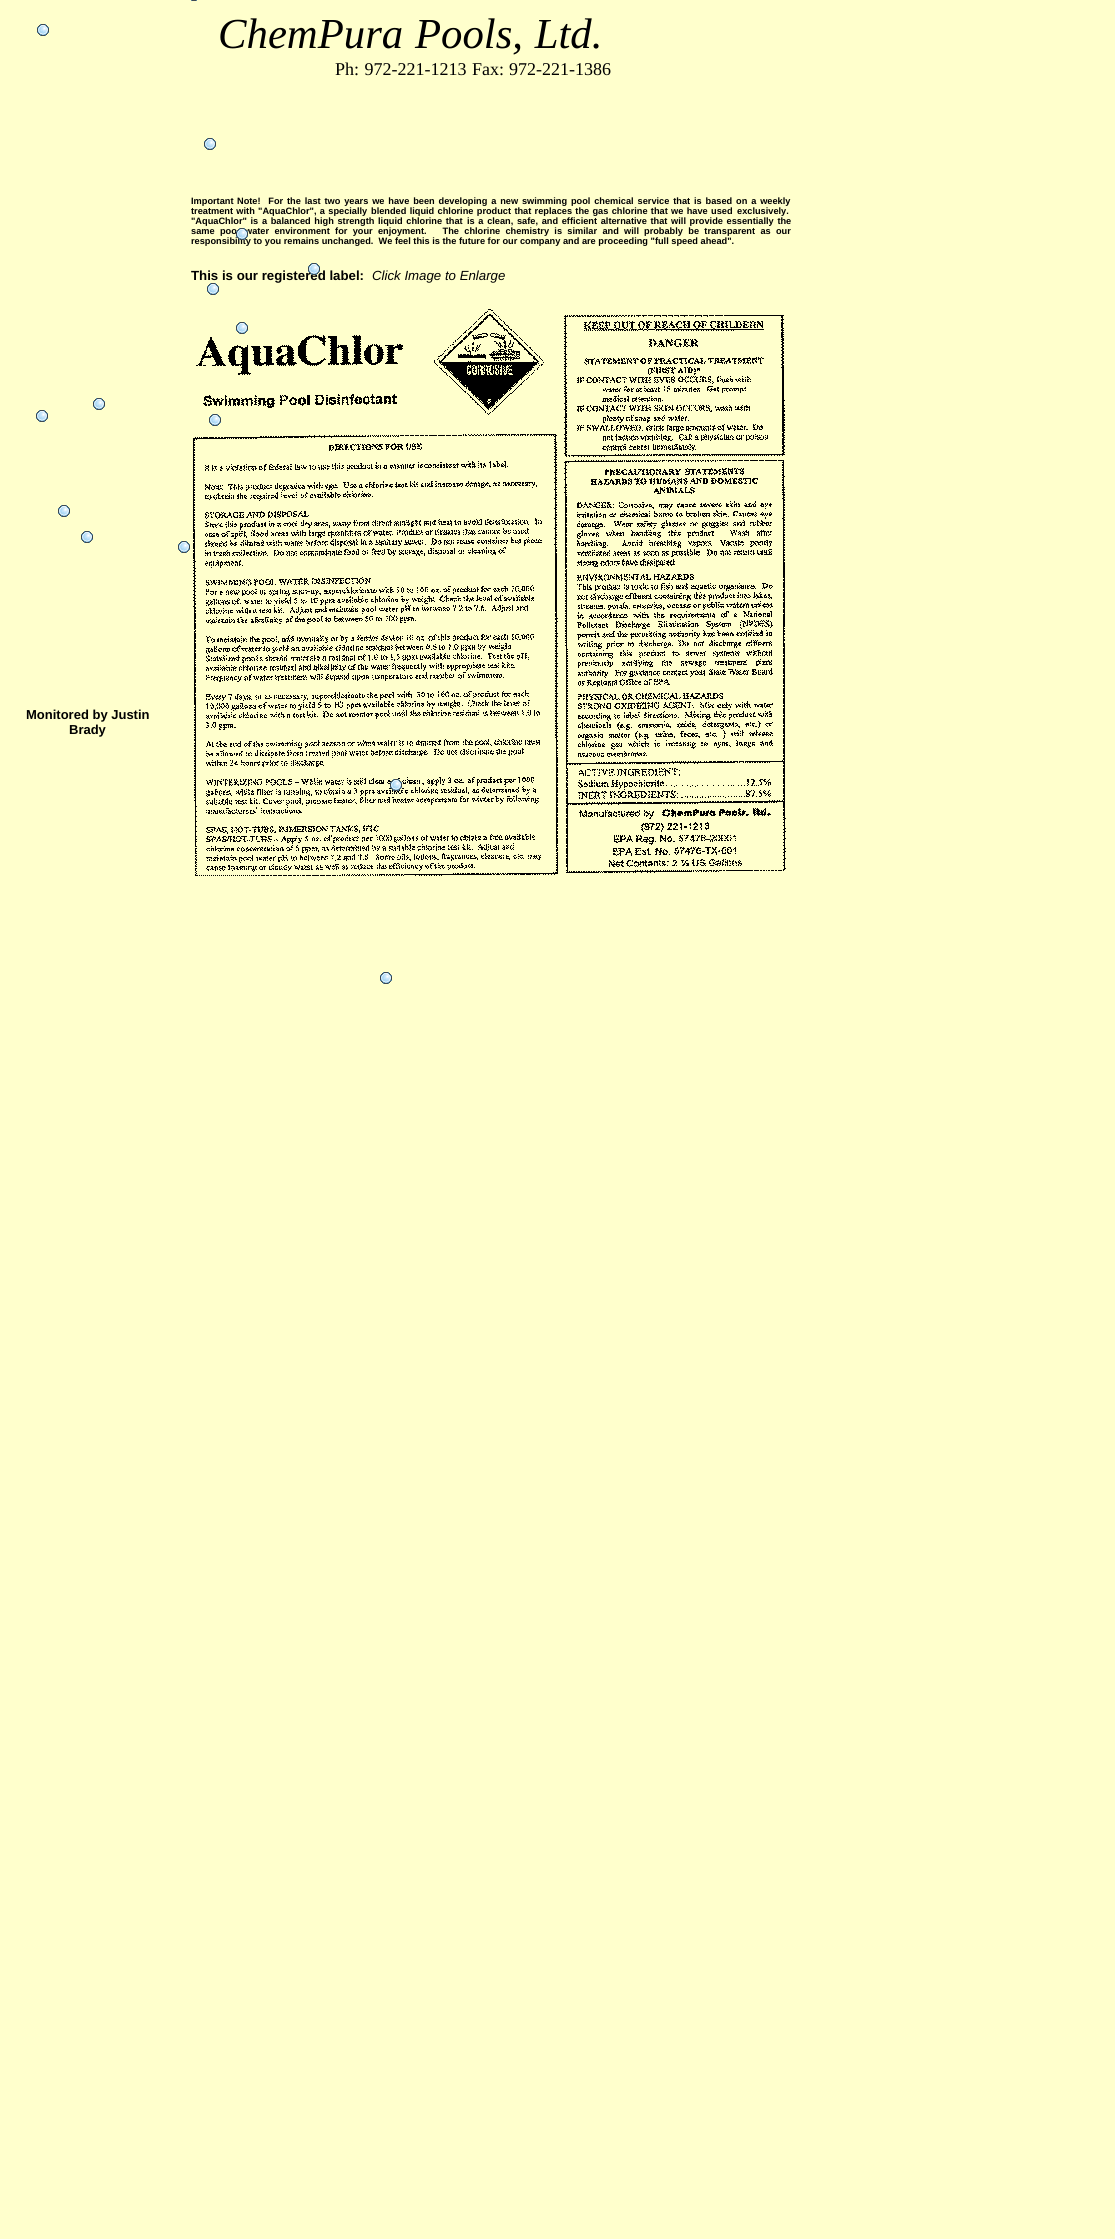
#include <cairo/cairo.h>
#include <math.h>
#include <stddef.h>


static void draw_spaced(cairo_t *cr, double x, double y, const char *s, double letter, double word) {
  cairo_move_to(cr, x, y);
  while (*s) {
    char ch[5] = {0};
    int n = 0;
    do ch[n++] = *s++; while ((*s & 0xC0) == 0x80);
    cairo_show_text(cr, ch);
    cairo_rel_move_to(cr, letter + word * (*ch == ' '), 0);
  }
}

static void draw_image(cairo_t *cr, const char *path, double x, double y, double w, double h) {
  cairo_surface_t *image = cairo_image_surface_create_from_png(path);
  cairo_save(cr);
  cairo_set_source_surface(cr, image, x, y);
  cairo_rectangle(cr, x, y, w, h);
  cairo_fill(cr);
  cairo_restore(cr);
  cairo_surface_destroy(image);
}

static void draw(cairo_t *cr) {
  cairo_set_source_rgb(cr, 1, 1, 204 / 255.0);
  cairo_paint(cr);
  draw_image(cr, "images/1.png", 191, 0, 6, 1);
  draw_image(cr, "images/2.png", 37, 24, 12, 12);
  draw_image(cr, "images/2.png", 204, 138, 12, 12);
  draw_image(cr, "images/2.png", 207, 283, 12, 12);
  draw_image(cr, "images/6.png", 193, 309, 593, 567);
  draw_image(cr, "images/2.png", 236, 322, 12, 12);
  draw_image(cr, "images/2.png", 93, 398, 12, 12);
  draw_image(cr, "images/2.png", 36, 410, 12, 12);
  draw_image(cr, "images/2.png", 209, 414, 12, 12);
  draw_image(cr, "images/2.png", 58, 505, 12, 12);
  draw_image(cr, "images/2.png", 81, 531, 12, 12);
  draw_image(cr, "images/2.png", 178, 541, 12, 12);
  draw_image(cr, "images/5.png", 390, 779, 12, 12);
  draw_image(cr, "images/2.png", 380, 972, 12, 12);
  cairo_select_font_face(cr, "Liberation Serif", CAIRO_FONT_SLANT_ITALIC, CAIRO_FONT_WEIGHT_NORMAL);
  cairo_set_font_size(cr, 42.75);
  cairo_set_source_rgb(cr, 0, 0, 0);
  draw_spaced(cr, 218, 48, "ChemPura Pools, Ltd.", 0, 1);
  cairo_select_font_face(cr, "Liberation Serif", CAIRO_FONT_SLANT_NORMAL, CAIRO_FONT_WEIGHT_NORMAL);
  cairo_set_font_size(cr, 18);
  draw_spaced(cr, 335, 75, "Ph: 972-221-1213 Fax:", 0, 1);
  cairo_move_to(cr, 509, 75);
  cairo_show_text(cr, "972-221-1386");
  cairo_select_font_face(cr, "Liberation Sans", CAIRO_FONT_SLANT_NORMAL, CAIRO_FONT_WEIGHT_BOLD);
  cairo_set_font_size(cr, 9.22);
  cairo_move_to(cr, 191, 204);
  cairo_show_text(cr, "Important");
  draw_spaced(cr, 237, 204, "Note!  For the last two years we have been developing a new swimming pool chemical service that is based on a weekly", 0, 1.3);
  draw_spaced(cr, 191, 214, "treatment with \"AquaChlor\", a specially", 0, 0.75);
  draw_spaced(cr, 371, 214, "blended liquid chlorine product that replaces the gas chlorine that we have used", 0, 0.75);
  cairo_move_to(cr, 737, 214);
  cairo_show_text(cr, "exclusively.");
  draw_spaced(cr, 191, 224, "\"AquaChlor\" is a balanced high strength liquid chlorine that", 0, 1.1);
  draw_spaced(cr, 467, 224, "is a clean, safe, and efficient alternative that will provide essentially the", 0, 1.1);
  draw_spaced(cr, 191, 234, "same poo", 0, 2.75);
  draw_spaced(cr, 245, 234, "water environment for your enjoyment.   The chlorine chemistry is similar and will", 0, 2.75);
  draw_spaced(cr, 644, 234, "probably be transparent as our", 0, 2.75);
  cairo_move_to(cr, 191, 244);
  cairo_show_text(cr, "responsibility to you remains unchanged.  We feel this is the future for our company and are proceeding \"full speed ahead\".");
  draw_image(cr, "images/3.png", 236, 228, 12, 12);
  cairo_set_font_size(cr, 13.25);
  cairo_move_to(cr, 191, 280);
  cairo_show_text(cr, "This is our registered label:");
  draw_image(cr, "images/4.png", 308, 263, 12, 12);
  cairo_select_font_face(cr, "Liberation Sans", CAIRO_FONT_SLANT_ITALIC, CAIRO_FONT_WEIGHT_NORMAL);
  cairo_move_to(cr, 372, 280);
  cairo_show_text(cr, "Click Image to Enlarge");
  cairo_select_font_face(cr, "Liberation Sans", CAIRO_FONT_SLANT_NORMAL, CAIRO_FONT_WEIGHT_BOLD);
  cairo_set_font_size(cr, 13);
  cairo_move_to(cr, 26, 719);
  cairo_show_text(cr, "Monitored by Justin");
  cairo_move_to(cr, 69, 734);
  cairo_show_text(cr, "Brady");
}

int main(void) {
  cairo_surface_t *surface = cairo_image_surface_create(CAIRO_FORMAT_RGB24, 1115, 2239);
  cairo_t *cr = cairo_create(surface);
  cairo_font_options_t *options = cairo_font_options_create();
  cairo_font_options_set_hint_metrics(options, CAIRO_HINT_METRICS_OFF);
  cairo_font_options_set_hint_style(options, CAIRO_HINT_STYLE_NONE);
  cairo_set_font_options(cr, options);
  cairo_set_miter_limit(cr, 4);
  draw(cr);
  cairo_surface_write_to_png(surface, "out.png");
  cairo_font_options_destroy(options);
  cairo_destroy(cr);
  cairo_surface_destroy(surface);
  return 0;
}
